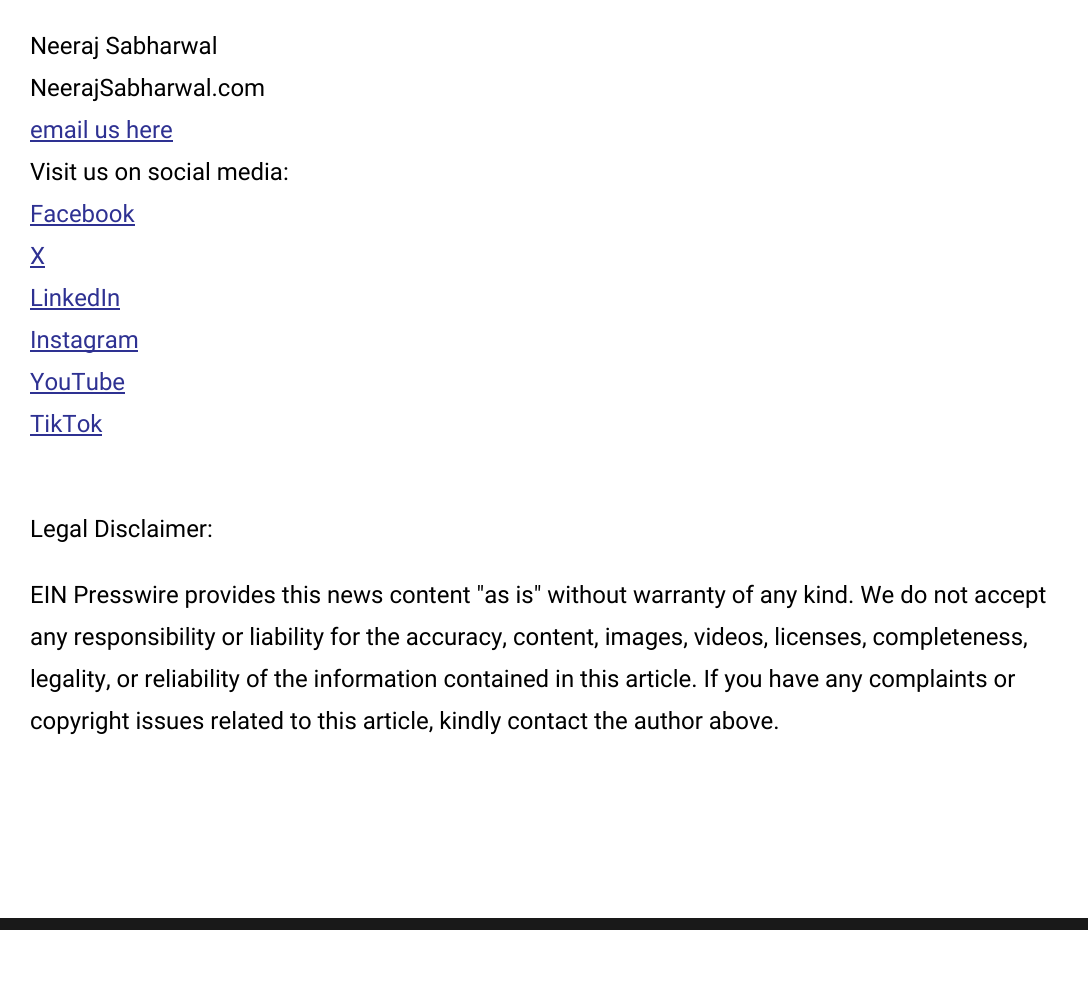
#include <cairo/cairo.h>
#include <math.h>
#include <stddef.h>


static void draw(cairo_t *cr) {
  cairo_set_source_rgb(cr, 1, 1, 1);
  cairo_paint(cr);
  cairo_set_source_rgb(cr, 46 / 255.0, 49 / 255.0, 146 / 255.0);
  cairo_rectangle(cr, 30, 140, 143, 2);
  cairo_fill(cr);
  cairo_rectangle(cr, 30, 224, 105, 2);
  cairo_fill(cr);
  cairo_rectangle(cr, 30, 266, 15, 2);
  cairo_fill(cr);
  cairo_rectangle(cr, 30, 308, 90, 2);
  cairo_fill(cr);
  cairo_rectangle(cr, 30, 350, 108, 2);
  cairo_fill(cr);
  cairo_rectangle(cr, 30, 392, 95, 2);
  cairo_fill(cr);
  cairo_rectangle(cr, 30, 434, 72, 2);
  cairo_fill(cr);
  cairo_set_source_rgb(cr, 25 / 255.0, 25 / 255.0, 25 / 255.0);
  cairo_rectangle(cr, 0, 918, 1088, 12);
  cairo_fill(cr);
  cairo_select_font_face(cr, "Roboto", CAIRO_FONT_SLANT_NORMAL, CAIRO_FONT_WEIGHT_NORMAL);
  cairo_set_font_size(cr, 24);
  cairo_set_source_rgb(cr, 0, 0, 0);
  cairo_move_to(cr, 30, 54);
  cairo_show_text(cr, "Neeraj Sabharwal");
  cairo_move_to(cr, 30, 96);
  cairo_show_text(cr, "NeerajSabharwal.com");
  cairo_set_source_rgb(cr, 46 / 255.0, 49 / 255.0, 146 / 255.0);
  cairo_move_to(cr, 30, 138);
  cairo_show_text(cr, "email us here");
  cairo_set_source_rgb(cr, 0, 0, 0);
  cairo_move_to(cr, 30, 180);
  cairo_show_text(cr, "Visit us on social media:");
  cairo_set_source_rgb(cr, 46 / 255.0, 49 / 255.0, 146 / 255.0);
  cairo_move_to(cr, 30, 222);
  cairo_show_text(cr, "Facebook");
  cairo_move_to(cr, 30, 264);
  cairo_show_text(cr, "X");
  cairo_move_to(cr, 30, 306);
  cairo_show_text(cr, "LinkedIn");
  cairo_move_to(cr, 30, 348);
  cairo_show_text(cr, "Instagram");
  cairo_move_to(cr, 30, 390);
  cairo_show_text(cr, "YouTube");
  cairo_move_to(cr, 30, 432);
  cairo_show_text(cr, "TikTok");
  cairo_set_source_rgb(cr, 0, 0, 0);
  cairo_move_to(cr, 30, 537);
  cairo_show_text(cr, "Legal Disclaimer:");
  cairo_move_to(cr, 30, 603);
  cairo_show_text(cr, "EIN Presswire provides this news content \"as is\" without warranty of any kind. We do not accept");
  cairo_move_to(cr, 30, 645);
  cairo_show_text(cr, "any responsibility or liability for the accuracy, content, images, videos, licenses, completeness,");
  cairo_move_to(cr, 30, 687);
  cairo_show_text(cr, "legality, or reliability of the information contained in this article. If you have any complaints or");
  cairo_move_to(cr, 30, 729);
  cairo_show_text(cr, "copyright issues related to this article, kindly contact the author above.");
}

int main(void) {
  cairo_surface_t *surface = cairo_image_surface_create(CAIRO_FORMAT_RGB24, 1088, 990);
  cairo_t *cr = cairo_create(surface);
  cairo_font_options_t *options = cairo_font_options_create();
  cairo_font_options_set_hint_metrics(options, CAIRO_HINT_METRICS_OFF);
  cairo_font_options_set_hint_style(options, CAIRO_HINT_STYLE_NONE);
  cairo_set_font_options(cr, options);
  cairo_set_miter_limit(cr, 4);
  draw(cr);
  cairo_surface_write_to_png(surface, "out.png");
  cairo_font_options_destroy(options);
  cairo_destroy(cr);
  cairo_surface_destroy(surface);
  return 0;
}
